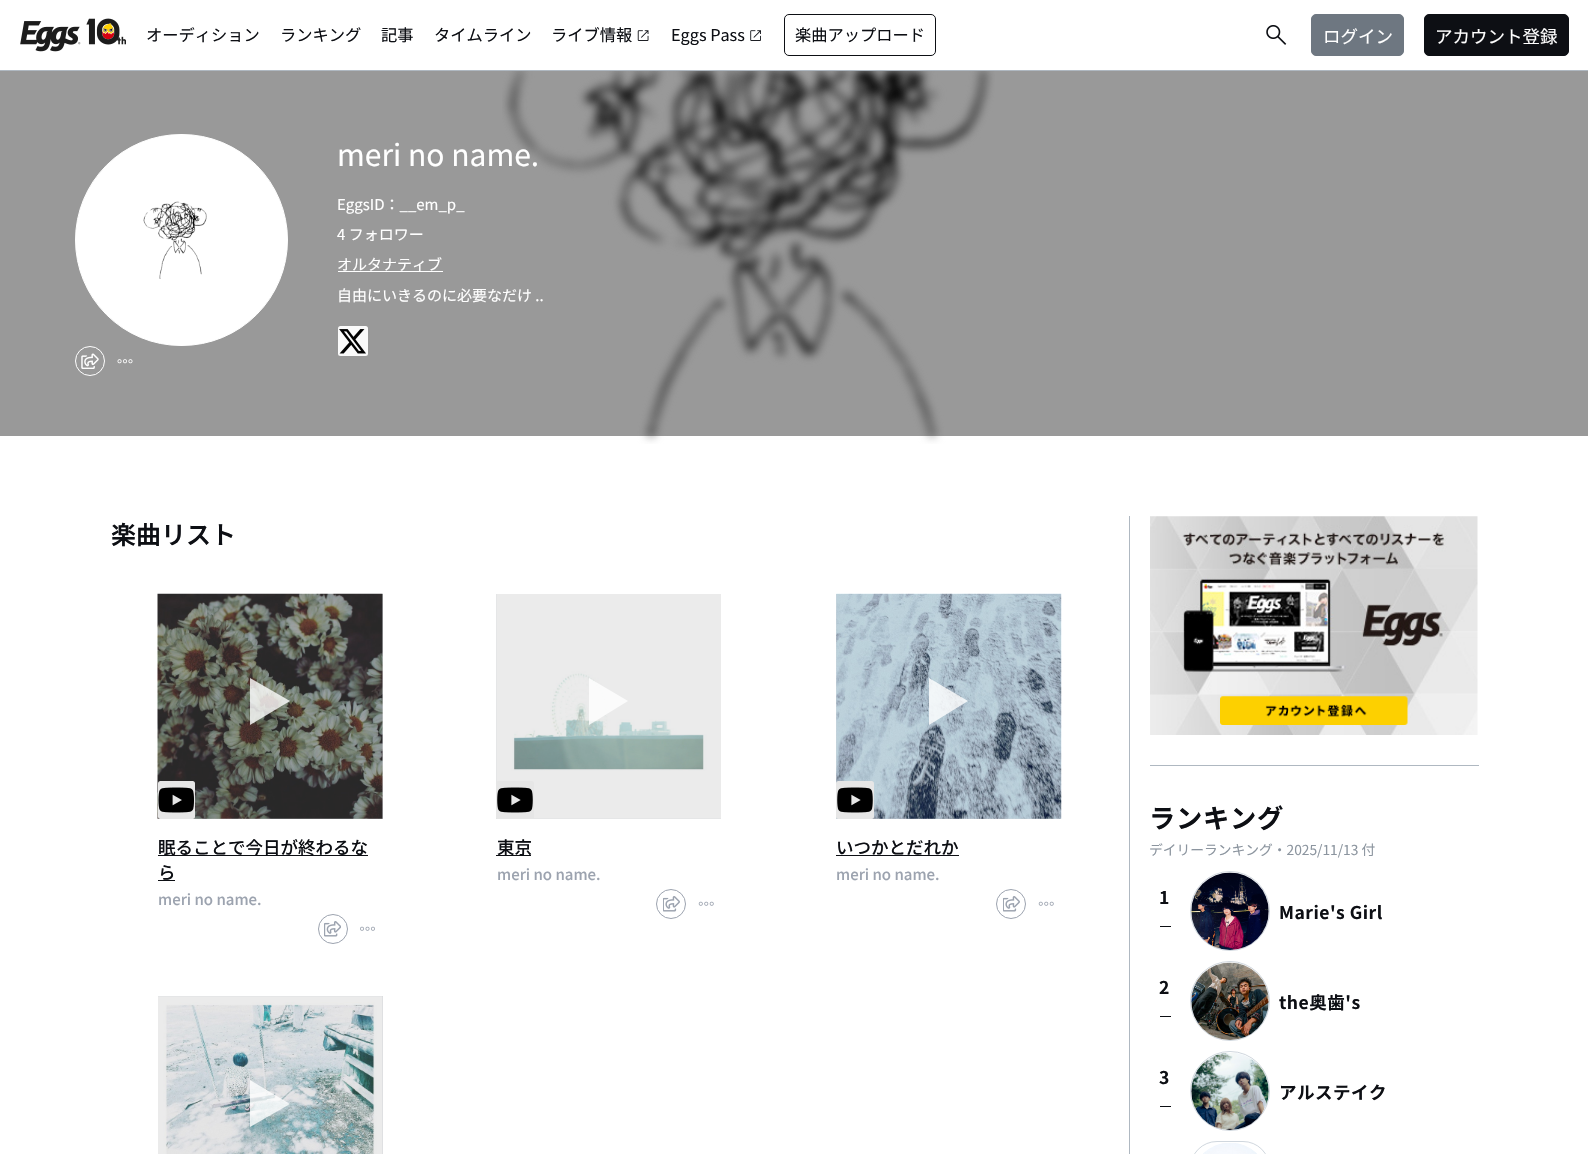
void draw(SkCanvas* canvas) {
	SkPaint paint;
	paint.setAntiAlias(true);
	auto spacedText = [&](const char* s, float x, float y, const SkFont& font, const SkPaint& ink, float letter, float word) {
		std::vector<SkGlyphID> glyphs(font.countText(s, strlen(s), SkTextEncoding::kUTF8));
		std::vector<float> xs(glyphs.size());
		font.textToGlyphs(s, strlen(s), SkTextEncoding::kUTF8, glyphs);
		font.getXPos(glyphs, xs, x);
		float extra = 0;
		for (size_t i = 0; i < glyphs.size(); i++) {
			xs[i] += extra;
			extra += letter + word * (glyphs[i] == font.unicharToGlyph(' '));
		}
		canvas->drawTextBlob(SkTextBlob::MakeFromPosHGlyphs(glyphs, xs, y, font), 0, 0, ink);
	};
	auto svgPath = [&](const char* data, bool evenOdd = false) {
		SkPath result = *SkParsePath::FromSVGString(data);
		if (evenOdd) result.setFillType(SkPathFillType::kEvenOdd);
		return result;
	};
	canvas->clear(0xffffffff);
	paint.setColor(0xffafb8c1);
	canvas->drawRect(SkRect::MakeXYWH(0, 70, 1588, 1), paint);
	canvas->drawImageRect(SkImages::DeferredFromEncodedData(SkData::MakeFromFileName("img1.png")), SkRect::MakeXYWH(20, 18, 106, 34), SkSamplingOptions());
	SkFont f1(fontMgr->matchFamilyStyle("Noto Sans JP", SkFontStyle::Normal()), 16.25);
	f1.setSubpixel(true);
	paint.setColor(0xff0d0f14);
	canvas->drawString("オーディション", 146, 41, f1, paint);
	canvas->drawString("ランキング", 280, 41, f1, paint);
	canvas->drawString("記事", 381, 41, f1, paint);
	canvas->drawString("タイムライン", 434, 41, f1, paint);
	canvas->drawString("ライブ情報", 551, 41, f1, paint);
	canvas->drawImageRect(SkImages::DeferredFromEncodedData(SkData::MakeFromFileName("img2.png")), SkRect::MakeXYWH(637, 30, 12, 11), SkSamplingOptions());
	canvas->drawString("Eggs Pass", 671, 41, f1, paint);
	canvas->drawImageRect(SkImages::DeferredFromEncodedData(SkData::MakeFromFileName("img3.png")), SkRect::MakeXYWH(750, 30, 11, 11), SkSamplingOptions());
	paint.setStroke(true);
	paint.setStrokeWidth(1);
	canvas->drawRoundRect(SkRect::MakeXYWH(784.5, 14.5, 151, 41), 4.5, 4.5, paint);
	paint.setStroke(false);
	canvas->drawString("楽曲アップロード", 795, 41, f1, paint);
	canvas->drawImageRect(SkImages::DeferredFromEncodedData(SkData::MakeFromFileName("img4.png")), SkRect::MakeXYWH(1266, 25, 21, 20), SkSamplingOptions());
	paint.setColor(0xff6e7781);
	canvas->drawRoundRect(SkRect::MakeXYWH(1311.5, 14.5, 92, 41), 4.5, 4.5, paint);
	paint.setStroke(true);
	canvas->drawRoundRect(SkRect::MakeXYWH(1311.5, 14.5, 92, 41), 4.5, 4.5, paint);
	SkFont f2(fontMgr->matchFamilyStyle("Noto Sans JP", SkFontStyle::Normal()), 17.5);
	f2.setSubpixel(true);
	paint.setStroke(false);
	paint.setColor(0xffffffff);
	canvas->drawString("ログイン", 1323, 43, f2, paint);
	paint.setColor(0xff0d0f14);
	canvas->drawRoundRect(SkRect::MakeXYWH(1424.5, 14.5, 144, 41), 4.5, 4.5, paint);
	paint.setStroke(true);
	canvas->drawRoundRect(SkRect::MakeXYWH(1424.5, 14.5, 144, 41), 4.5, 4.5, paint);
	paint.setStroke(false);
	paint.setColor(0xffffffff);
	canvas->drawString("アカウント登録", 1435, 43, f2, paint);
	paint.setColor(0xff999999);
	canvas->drawRect(SkRect::MakeXYWH(0, 71, 1588, 365), paint);
	paint.setColor(0xffffffff);
	canvas->drawRoundRect(SkRect::MakeXYWH(75.5, 134.5, 212, 211), 105.5, 105.5, paint);
	paint.setStroke(true);
	canvas->drawRoundRect(SkRect::MakeXYWH(75.5, 134.5, 212, 211), 105.5, 105.5, paint);
	canvas->drawImageRect(SkImages::DeferredFromEncodedData(SkData::MakeFromFileName("img5.png")), SkRect::MakeXYWH(143, 201, 64, 78), SkSamplingOptions());
	canvas->drawCircle(90, 361, 14.5, paint);
	canvas->drawImageRect(SkImages::DeferredFromEncodedData(SkData::MakeFromFileName("img6.png")), SkRect::MakeXYWH(81, 353, 18, 16), SkSamplingOptions());
	canvas->drawImageRect(SkImages::DeferredFromEncodedData(SkData::MakeFromFileName("img7.png")), SkRect::MakeXYWH(117, 359, 16, 5), SkSamplingOptions());
	canvas->drawImageRect(SkImages::DeferredFromEncodedData(SkData::MakeFromFileName("img9.png")), SkRect::MakeXYWH(502, 71, 493, 373), SkSamplingOptions());
	SkFont f3(fontMgr->matchFamilyStyle("Noto Sans JP", SkFontStyle::Normal()), 30);
	f3.setSubpixel(true);
	paint.setStroke(false);
	canvas->drawString("meri no name.", 337, 166, f3, paint);
	SkFont f4(fontMgr->matchFamilyStyle("Noto Sans JP", SkFontStyle::Normal()), 15);
	f4.setSubpixel(true);
	canvas->drawString("EggsID：__em_p_", 337, 210, f4, paint);
	canvas->drawString("4 フォロワー", 337, 240, f4, paint);
	canvas->drawRect(SkRect::MakeXYWH(338, 271, 105, 1), paint);
	canvas->drawString("オルタナティブ", 337, 270, f4, paint);
	canvas->drawString("自由にいきるのに必要なだけ ..", 337, 301, f4, paint);
	paint.setColor(0xfffafafa);
	canvas->drawRoundRect(SkRect::MakeXYWH(338, 326, 30, 30), 2.5, 2.5, paint);
	canvas->drawImageRect(SkImages::DeferredFromEncodedData(SkData::MakeFromFileName("img8.png")), SkRect::MakeXYWH(339, 329, 27, 25), SkSamplingOptions());
	SkFont f5(fontMgr->matchFamilyStyle("Noto Sans JP", SkFontStyle(600, SkFontStyle::kNormal_Width, SkFontStyle::kUpright_Slant)), 25);
	f5.setSubpixel(true);
	paint.setColor(0xff0d0f14);
	canvas->drawString("楽曲リスト", 111, 544, f5, paint);
	paint.setColor(0xffd3d5d8);
	canvas->drawRect(SkRect::MakeXYWH(158, 594, 225, 225), paint);
	canvas->drawImageRect(SkImages::DeferredFromEncodedData(SkData::MakeFromFileName("img10.png")), SkRect::MakeXYWH(157, 593, 226, 226), SkSamplingOptions());
	paint.setColor(0xccffffff);
	canvas->drawPath(svgPath("M250 725L290 701L250 678Z"), paint);
	paint.setColor(0xffe6e6e6);
	canvas->drawRoundRect(SkRect::MakeXYWH(158, 781, 37, 38), 2.5, 2.5, paint);
	canvas->drawImageRect(SkImages::DeferredFromEncodedData(SkData::MakeFromFileName("img11.png")), SkRect::MakeXYWH(158, 787, 36, 26), SkSamplingOptions());
	paint.setColor(0xff0d0f14);
	canvas->drawRect(SkRect::MakeXYWH(158, 855, 210, 1), paint);
	SkFont f6(fontMgr->matchFamilyStyle("Noto Sans JP", SkFontStyle(500, SkFontStyle::kNormal_Width, SkFontStyle::kUpright_Slant)), 17.5);
	f6.setSubpixel(true);
	canvas->drawString("眠ることで今日が終わるな", 158, 854, f6, paint);
	canvas->drawString("ら", 158, 879, f6, paint);
	canvas->drawRect(SkRect::MakeXYWH(158, 880, 17, 1), paint);
	SkFont f7(fontMgr->matchFamilyStyle("Noto Sans JP", SkFontStyle(500, SkFontStyle::kNormal_Width, SkFontStyle::kUpright_Slant)), 15);
	f7.setSubpixel(true);
	paint.setColor(0xff9ca3af);
	canvas->drawString("meri no name.", 158, 905, f7, paint);
	paint.setStroke(true);
	canvas->drawCircle(333, 929, 14.5, paint);
	canvas->drawImageRect(SkImages::DeferredFromEncodedData(SkData::MakeFromFileName("img12.png")), SkRect::MakeXYWH(324, 921, 17, 16), SkSamplingOptions());
	canvas->drawImageRect(SkImages::DeferredFromEncodedData(SkData::MakeFromFileName("img13.png")), SkRect::MakeXYWH(360, 926, 15, 5), SkSamplingOptions());
	paint.setStroke(false);
	paint.setColor(0xffd3d5d8);
	canvas->drawRect(SkRect::MakeXYWH(496, 594, 225, 225), paint);
	canvas->drawImageRect(SkImages::DeferredFromEncodedData(SkData::MakeFromFileName("img14.png")), SkRect::MakeXYWH(496, 594, 225, 225), SkSamplingOptions());
	paint.setColor(0xccffffff);
	canvas->drawPath(svgPath("M589 725L628 701L589 678Z"), paint);
	paint.setColor(0xffe6e6e6);
	canvas->drawRoundRect(SkRect::MakeXYWH(496, 781, 38, 38), 2.5, 2.5, paint);
	canvas->drawImageRect(SkImages::DeferredFromEncodedData(SkData::MakeFromFileName("img15.png")), SkRect::MakeXYWH(497, 787, 36, 26), SkSamplingOptions());
	paint.setColor(0xff0d0f14);
	canvas->drawRect(SkRect::MakeXYWH(496, 855, 35, 1), paint);
	canvas->drawString("東京", 497, 854, f6, paint);
	paint.setColor(0xff9ca3af);
	canvas->drawString("meri no name.", 497, 880, f7, paint);
	paint.setStroke(true);
	canvas->drawCircle(671, 904, 14.5, paint);
	canvas->drawImageRect(SkImages::DeferredFromEncodedData(SkData::MakeFromFileName("img16.png")), SkRect::MakeXYWH(663, 896, 17, 16), SkSamplingOptions());
	canvas->drawImageRect(SkImages::DeferredFromEncodedData(SkData::MakeFromFileName("img17.png")), SkRect::MakeXYWH(698, 901, 16, 5), SkSamplingOptions());
	paint.setStroke(false);
	paint.setColor(0xffd3d5d8);
	canvas->drawRect(SkRect::MakeXYWH(836, 594, 225, 225), paint);
	canvas->drawImageRect(SkImages::DeferredFromEncodedData(SkData::MakeFromFileName("img18.png")), SkRect::MakeXYWH(836, 593, 226, 226), SkSamplingOptions());
	paint.setColor(0xccffffff);
	canvas->drawPath(svgPath("M929 725L968 701L929 678Z"), paint);
	paint.setColor(0xffe6e6e6);
	canvas->drawRoundRect(SkRect::MakeXYWH(836, 781, 38, 38), 2.5, 2.5, paint);
	canvas->drawImageRect(SkImages::DeferredFromEncodedData(SkData::MakeFromFileName("img15.png")), SkRect::MakeXYWH(837, 787, 36, 26), SkSamplingOptions());
	paint.setColor(0xff0d0f14);
	canvas->drawString("いつかとだれか", 836, 854, f6, paint);
	canvas->drawRect(SkRect::MakeXYWH(836, 855, 123, 1), paint);
	paint.setColor(0xff9ca3af);
	canvas->drawString("meri no name.", 836, 880, f7, paint);
	paint.setStroke(true);
	canvas->drawCircle(1011, 904, 14.5, paint);
	canvas->drawImageRect(SkImages::DeferredFromEncodedData(SkData::MakeFromFileName("img16.png")), SkRect::MakeXYWH(1003, 896, 17, 16), SkSamplingOptions());
	canvas->drawImageRect(SkImages::DeferredFromEncodedData(SkData::MakeFromFileName("img17.png")), SkRect::MakeXYWH(1038, 901, 16, 5), SkSamplingOptions());
	paint.setStroke(false);
	paint.setColor(0xffd3d5d8);
	canvas->drawRect(SkRect::MakeXYWH(158, 996, 225, 158), paint);
	canvas->drawImageRect(SkImages::DeferredFromEncodedData(SkData::MakeFromFileName("img19.png")), SkRect::MakeXYWH(158, 996, 225, 158), SkSamplingOptions());
	paint.setColor(0xccffffff);
	canvas->drawPath(svgPath("M250 1127L290 1104L250 1080Z"), paint);
	paint.setColor(0xffafb8c1);
	canvas->drawRect(SkRect::MakeXYWH(1129, 516, 1, 638), paint);
	canvas->drawRect(SkRect::MakeXYWH(1150, 765, 329, 1), paint);
	canvas->drawImageRect(SkImages::DeferredFromEncodedData(SkData::MakeFromFileName("img20.png")), SkRect::MakeXYWH(1150, 516, 328, 219), SkSamplingOptions());
	canvas->drawImageRect(SkImages::DeferredFromEncodedData(SkData::MakeFromFileName("img21.png")), SkRect::MakeXYWH(1220, 696, 188, 29), SkSamplingOptions());
	SkFont f8(fontMgr->matchFamilyStyle("Noto Sans JP", SkFontStyle::Bold()), 26.25);
	f8.setSubpixel(true);
	paint.setColor(0xff0d0f14);
	spacedText("ランキング", 1149, 828, f8, paint, 0.75, 0);
	SkFont f9(fontMgr->matchFamilyStyle("Noto Sans JP", SkFontStyle::Normal()), 13.75);
	f9.setSubpixel(true);
	paint.setColor(0xff8c959f);
	canvas->drawString("デイリーランキング・2025/11/13 付", 1149, 855, f9, paint);
	SkFont f10(fontMgr->matchFamilyStyle("Noto Sans JP", SkFontStyle::Bold()), 17.5);
	f10.setSubpixel(true);
	paint.setColor(0xff0d0f14);
	spacedText("1", 1159, 904, f10, paint, 0.5, 0);
	canvas->drawRect(SkRect::MakeXYWH(1160, 926, 11, 1), paint);
	paint.setStroke(true);
	paint.setColor(0xffd0d7de);
	canvas->drawCircle(1230, 911, 39.5, paint);
	canvas->drawImageRect(SkImages::DeferredFromEncodedData(SkData::MakeFromFileName("img22.png")), SkRect::MakeXYWH(1191, 872, 78, 78), SkSamplingOptions());
	paint.setStroke(false);
	paint.setColor(0xff0d0f14);
	spacedText("Marie's Girl", 1279, 919, f10, paint, 0.5, 0);
	spacedText("2", 1159, 994, f10, paint, 0.5, 0);
	canvas->drawRect(SkRect::MakeXYWH(1160, 1016, 11, 1), paint);
	paint.setStroke(true);
	paint.setColor(0xffd0d7de);
	canvas->drawCircle(1230, 1001, 39.5, paint);
	canvas->drawImageRect(SkImages::DeferredFromEncodedData(SkData::MakeFromFileName("img23.png")), SkRect::MakeXYWH(1191, 962, 78, 78), SkSamplingOptions());
	paint.setStroke(false);
	paint.setColor(0xff0d0f14);
	spacedText("the奥歯's", 1279, 1009, f10, paint, 0.5, 0);
	spacedText("3", 1159, 1084, f10, paint, 0.5, 0);
	canvas->drawRect(SkRect::MakeXYWH(1160, 1106, 11, 1), paint);
	paint.setStroke(true);
	paint.setColor(0xffd0d7de);
	canvas->drawCircle(1230, 1091, 39.5, paint);
	canvas->drawImageRect(SkImages::DeferredFromEncodedData(SkData::MakeFromFileName("img24.png")), SkRect::MakeXYWH(1191, 1053, 78, 77), SkSamplingOptions());
	paint.setStroke(false);
	paint.setColor(0xff0d0f14);
	spacedText("アルステイク", 1279, 1099, f10, paint, 0.5, 0);
	paint.setStroke(true);
	paint.setColor(0xffd0d7de);
	canvas->drawRoundRect(SkRect::MakeXYWH(1190.5, 1141.5, 79, 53), 39.5, 39.5, paint);
	canvas->drawImageRect(SkImages::DeferredFromEncodedData(SkData::MakeFromFileName("img25.png")), SkRect::MakeXYWH(1203, 1143, 54, 11), SkSamplingOptions());
}
